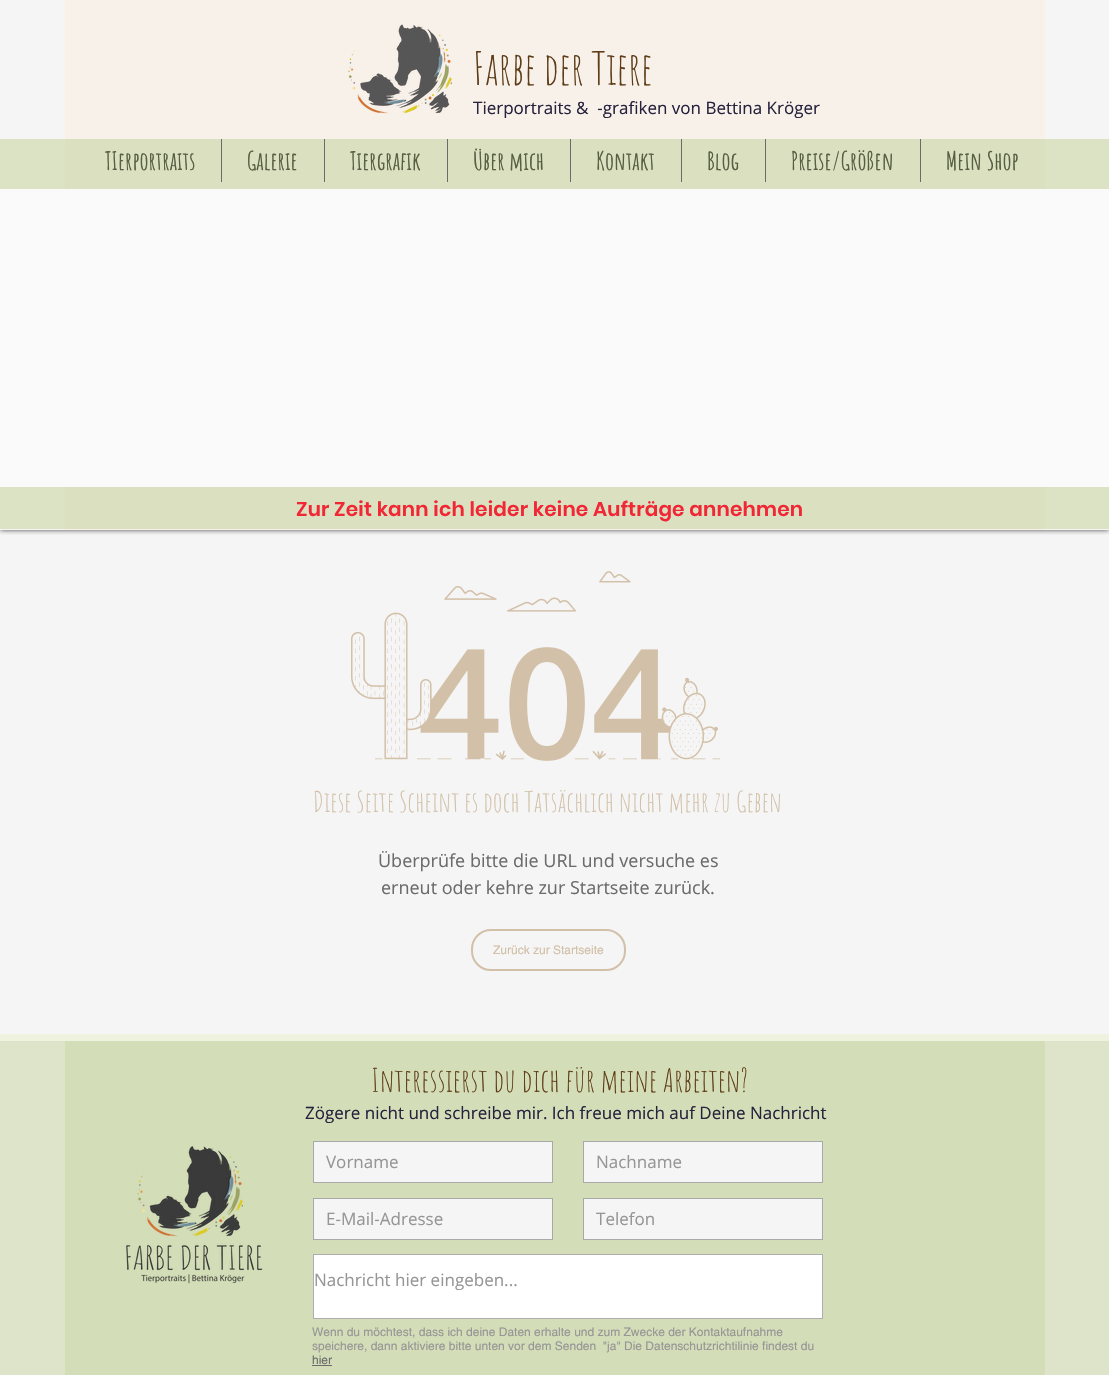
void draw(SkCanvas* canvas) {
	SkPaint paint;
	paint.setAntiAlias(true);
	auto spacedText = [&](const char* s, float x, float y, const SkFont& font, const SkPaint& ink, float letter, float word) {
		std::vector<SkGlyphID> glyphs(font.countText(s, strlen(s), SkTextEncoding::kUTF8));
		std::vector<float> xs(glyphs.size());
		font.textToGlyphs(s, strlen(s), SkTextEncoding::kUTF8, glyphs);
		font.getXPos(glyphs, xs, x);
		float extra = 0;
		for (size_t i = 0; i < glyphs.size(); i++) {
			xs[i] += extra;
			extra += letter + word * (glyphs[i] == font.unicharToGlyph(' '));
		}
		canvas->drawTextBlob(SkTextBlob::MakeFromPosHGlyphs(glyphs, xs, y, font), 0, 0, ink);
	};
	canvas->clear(0xfff5f5f5);
	paint.setColor(0xffdbe3c4);
	canvas->drawRect(SkRect::MakeXYWH(0, 139, 1109, 390), paint);
	canvas->save();
	canvas->clipRect(SkRect::MakeXYWH(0, 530, 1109, 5));
	paint.setColor(0xb3000000);
	paint.setMaskFilter(SkMaskFilter::MakeBlur(kNormal_SkBlurStyle, 2.5));
	canvas->drawRect(SkRect::MakeXYWH(0, 0, 1109, 530), paint);
	paint.setMaskFilter(nullptr);
	canvas->restore();
	paint.setColor(0xfff7f1e9);
	canvas->drawRect(SkRect::MakeXYWH(65, 0, 980, 530), paint);
	paint.setColor(0xffdbe1c0);
	canvas->drawRect(SkRect::MakeXYWH(65, 139, 980, 390), paint);
	canvas->drawImageRect(SkImages::DeferredFromEncodedData(SkData::MakeFromFileName("img1.png")), SkRect::MakeXYWH(348, 24, 104, 90), SkSamplingOptions());
	SkFont f1(fontMgr->matchFamilyStyle("Amatic SC", SkFontStyle::Normal()), 45);
	f1.setSubpixel(true);
	paint.setColor(0xff5e3c17);
	canvas->drawString("Farbe der Tiere", 473, 85, f1, paint);
	SkFont f2(fontMgr->matchFamilyStyle("Open Sans", SkFontStyle::Normal()), 17);
	f2.setSubpixel(true);
	paint.setColor(0xff27223e);
	canvas->drawString("Tierportraits &  -grafiken von Bettina Kröger", 473, 114, f2, paint);
	SkFont f3(fontMgr->matchFamilyStyle("Amatic SC", SkFontStyle::Bold()), 25);
	f3.setSubpixel(true);
	paint.setColor(0xff585e43);
	canvas->drawString("TIerportraits", 105, 170, f3, paint);
	paint.setColor(0xff6b6b6b);
	canvas->drawRect(SkRect::MakeXYWH(221, 139, 1, 43), paint);
	paint.setColor(0xff585e43);
	canvas->drawString("Galerie", 247, 170, f3, paint);
	paint.setColor(0xff6b6b6b);
	canvas->drawRect(SkRect::MakeXYWH(324, 139, 1, 43), paint);
	paint.setColor(0xff585e43);
	canvas->drawString("Tiergrafik", 350, 170, f3, paint);
	paint.setColor(0xff6b6b6b);
	canvas->drawRect(SkRect::MakeXYWH(447, 139, 1, 43), paint);
	paint.setColor(0xff585e43);
	canvas->drawString("Über mich", 473, 170, f3, paint);
	paint.setColor(0xff6b6b6b);
	canvas->drawRect(SkRect::MakeXYWH(570, 139, 1, 43), paint);
	paint.setColor(0xff585e43);
	canvas->drawString("Kontakt", 596, 170, f3, paint);
	paint.setColor(0xff6b6b6b);
	canvas->drawRect(SkRect::MakeXYWH(681, 139, 1, 43), paint);
	paint.setColor(0xff585e43);
	canvas->drawString("Blog", 707, 170, f3, paint);
	paint.setColor(0xff6b6b6b);
	canvas->drawRect(SkRect::MakeXYWH(765, 139, 1, 43), paint);
	paint.setColor(0xff585e43);
	canvas->drawString("Preise/Größen", 791, 170, f3, paint);
	paint.setColor(0xff6b6b6b);
	canvas->drawRect(SkRect::MakeXYWH(920, 139, 1, 43), paint);
	paint.setColor(0xff585e43);
	canvas->drawString("Mein Shop", 946, 170, f3, paint);
	paint.setColor(0xfffafafa);
	canvas->drawRect(SkRect::MakeXYWH(0, 189, 1109, 298), paint);
	SkFont f4(fontMgr->matchFamilyStyle("Poppins", SkFontStyle(600, SkFontStyle::kNormal_Width, SkFontStyle::kUpright_Slant)), 20);
	f4.setSubpixel(true);
	paint.setColor(0xfff22736);
	spacedText("Zur Zeit kann ich leider keine Aufträge annehmen", 296, 516, f4, paint, 0.2, 0);
	canvas->drawImageRect(SkImages::DeferredFromEncodedData(SkData::MakeFromFileName("img2.png")), SkRect::MakeXYWH(351, 571, 369, 190), SkSamplingOptions());
	SkFont f5(fontMgr->matchFamilyStyle("Amatic SC", SkFontStyle::Normal()), 28);
	f5.setSubpixel(true);
	paint.setColor(0xffd2c0a8);
	canvas->drawString("Diese Seite Scheint es doch Tatsächlich nicht mehr zu Geben", 313, 812, f5, paint);
	SkFont f6(fontMgr->matchFamilyStyle("Open Sans", SkFontStyle::Normal()), 18);
	f6.setSubpixel(true);
	paint.setColor(0xff6b6b6b);
	canvas->drawString("Überprüfe bitte die URL und versuche es", 378, 867, f6, paint);
	canvas->drawString("erneut oder kehre zur Startseite zurück.", 381, 894, f6, paint);
	paint.setStroke(true);
	paint.setStrokeWidth(2);
	paint.setColor(0xffd2c0a8);
	canvas->drawRoundRect(SkRect::MakeXYWH(472, 930, 153, 40), 19, 19, paint);
	SkFont f7(fontMgr->matchFamilyStyle("helvetica", SkFontStyle::Normal()), 12);
	f7.setSubpixel(true);
	paint.setStroke(false);
	canvas->drawString("Zurück zur Startseite", 493, 954, f7, paint);
	paint.setColor(0xffdde4c9);
	canvas->drawRect(SkRect::MakeXYWH(0, 1041, 1109, 334), paint);
	paint.setColor(0xffeef2df);
	canvas->drawRect(SkRect::MakeXYWH(0, 1034, 1109, 7), paint);
	paint.setColor(0xffd3ddb7);
	canvas->drawRect(SkRect::MakeXYWH(65, 1041, 980, 334), paint);
	SkFont f8(fontMgr->matchFamilyStyle("Amatic SC", SkFontStyle::Normal()), 32);
	f8.setSubpixel(true);
	paint.setColor(0xff5e3c17);
	canvas->drawString("Interessierst du dich für meine Arbeiten?", 371, 1092, f8, paint);
	paint.setColor(0xff27223e);
	canvas->drawString("Zögere nicht und schreibe mir. Ich freue mich auf Deine Nachricht", 305, 1119, f2, paint);
	canvas->drawImageRect(SkImages::DeferredFromEncodedData(SkData::MakeFromFileName("img3.png")), SkRect::MakeXYWH(126, 1146, 137, 138), SkSamplingOptions());
	paint.setColor(0xfff5f5f5);
	canvas->drawRect(SkRect::MakeXYWH(313.5, 1141.5, 239, 41), paint);
	paint.setStroke(true);
	paint.setStrokeWidth(1);
	paint.setColor(0xffa9a9a9);
	canvas->drawRect(SkRect::MakeXYWH(313.5, 1141.5, 239, 41), paint);
	paint.setStroke(false);
	paint.setColor(0xff969696);
	canvas->drawString("Vorname", 326, 1168, f2, paint);
	paint.setColor(0xfff5f5f5);
	canvas->drawRect(SkRect::MakeXYWH(583.5, 1141.5, 239, 41), paint);
	paint.setStroke(true);
	paint.setColor(0xffa9a9a9);
	canvas->drawRect(SkRect::MakeXYWH(583.5, 1141.5, 239, 41), paint);
	paint.setStroke(false);
	paint.setColor(0xff969696);
	canvas->drawString("Nachname", 596, 1168, f2, paint);
	paint.setColor(0xfff5f5f5);
	canvas->drawRect(SkRect::MakeXYWH(313.5, 1198.5, 239, 41), paint);
	paint.setStroke(true);
	paint.setColor(0xffa9a9a9);
	canvas->drawRect(SkRect::MakeXYWH(313.5, 1198.5, 239, 41), paint);
	paint.setStroke(false);
	paint.setColor(0xff969696);
	canvas->drawString("E-Mail-Adresse", 326, 1225, f2, paint);
	paint.setColor(0xfff5f5f5);
	canvas->drawRect(SkRect::MakeXYWH(583.5, 1198.5, 239, 41), paint);
	paint.setStroke(true);
	paint.setColor(0xffa9a9a9);
	canvas->drawRect(SkRect::MakeXYWH(583.5, 1198.5, 239, 41), paint);
	paint.setStroke(false);
	paint.setColor(0xff969696);
	canvas->drawString("Telefon", 596, 1225, f2, paint);
	paint.setColor(0xffffffff);
	canvas->drawRect(SkRect::MakeXYWH(313.5, 1254.5, 509, 64), paint);
	paint.setStroke(true);
	paint.setColor(0xffaeaeae);
	canvas->drawRect(SkRect::MakeXYWH(313.5, 1254.5, 509, 64), paint);
	paint.setStroke(false);
	paint.setColor(0xff969696);
	canvas->drawString("Nachricht hier eingeben...", 314, 1286, f2, paint);
	canvas->drawString("Wenn du möchtest, dass ich deine Daten erhalte und zum Zwecke der Kontaktaufnahme", 312, 1336, f7, paint);
	canvas->drawString("speichere, dann aktiviere bitte unten vor dem Senden  \"ja\" Die Datenschutzrichtilinie findest du", 312, 1350, f7, paint);
	paint.setColor(0xff6b6b6b);
	canvas->drawString("hier", 312, 1364, f7, paint);
	canvas->drawRect(SkRect::MakeXYWH(312, 1365, 20, 1), paint);
}
